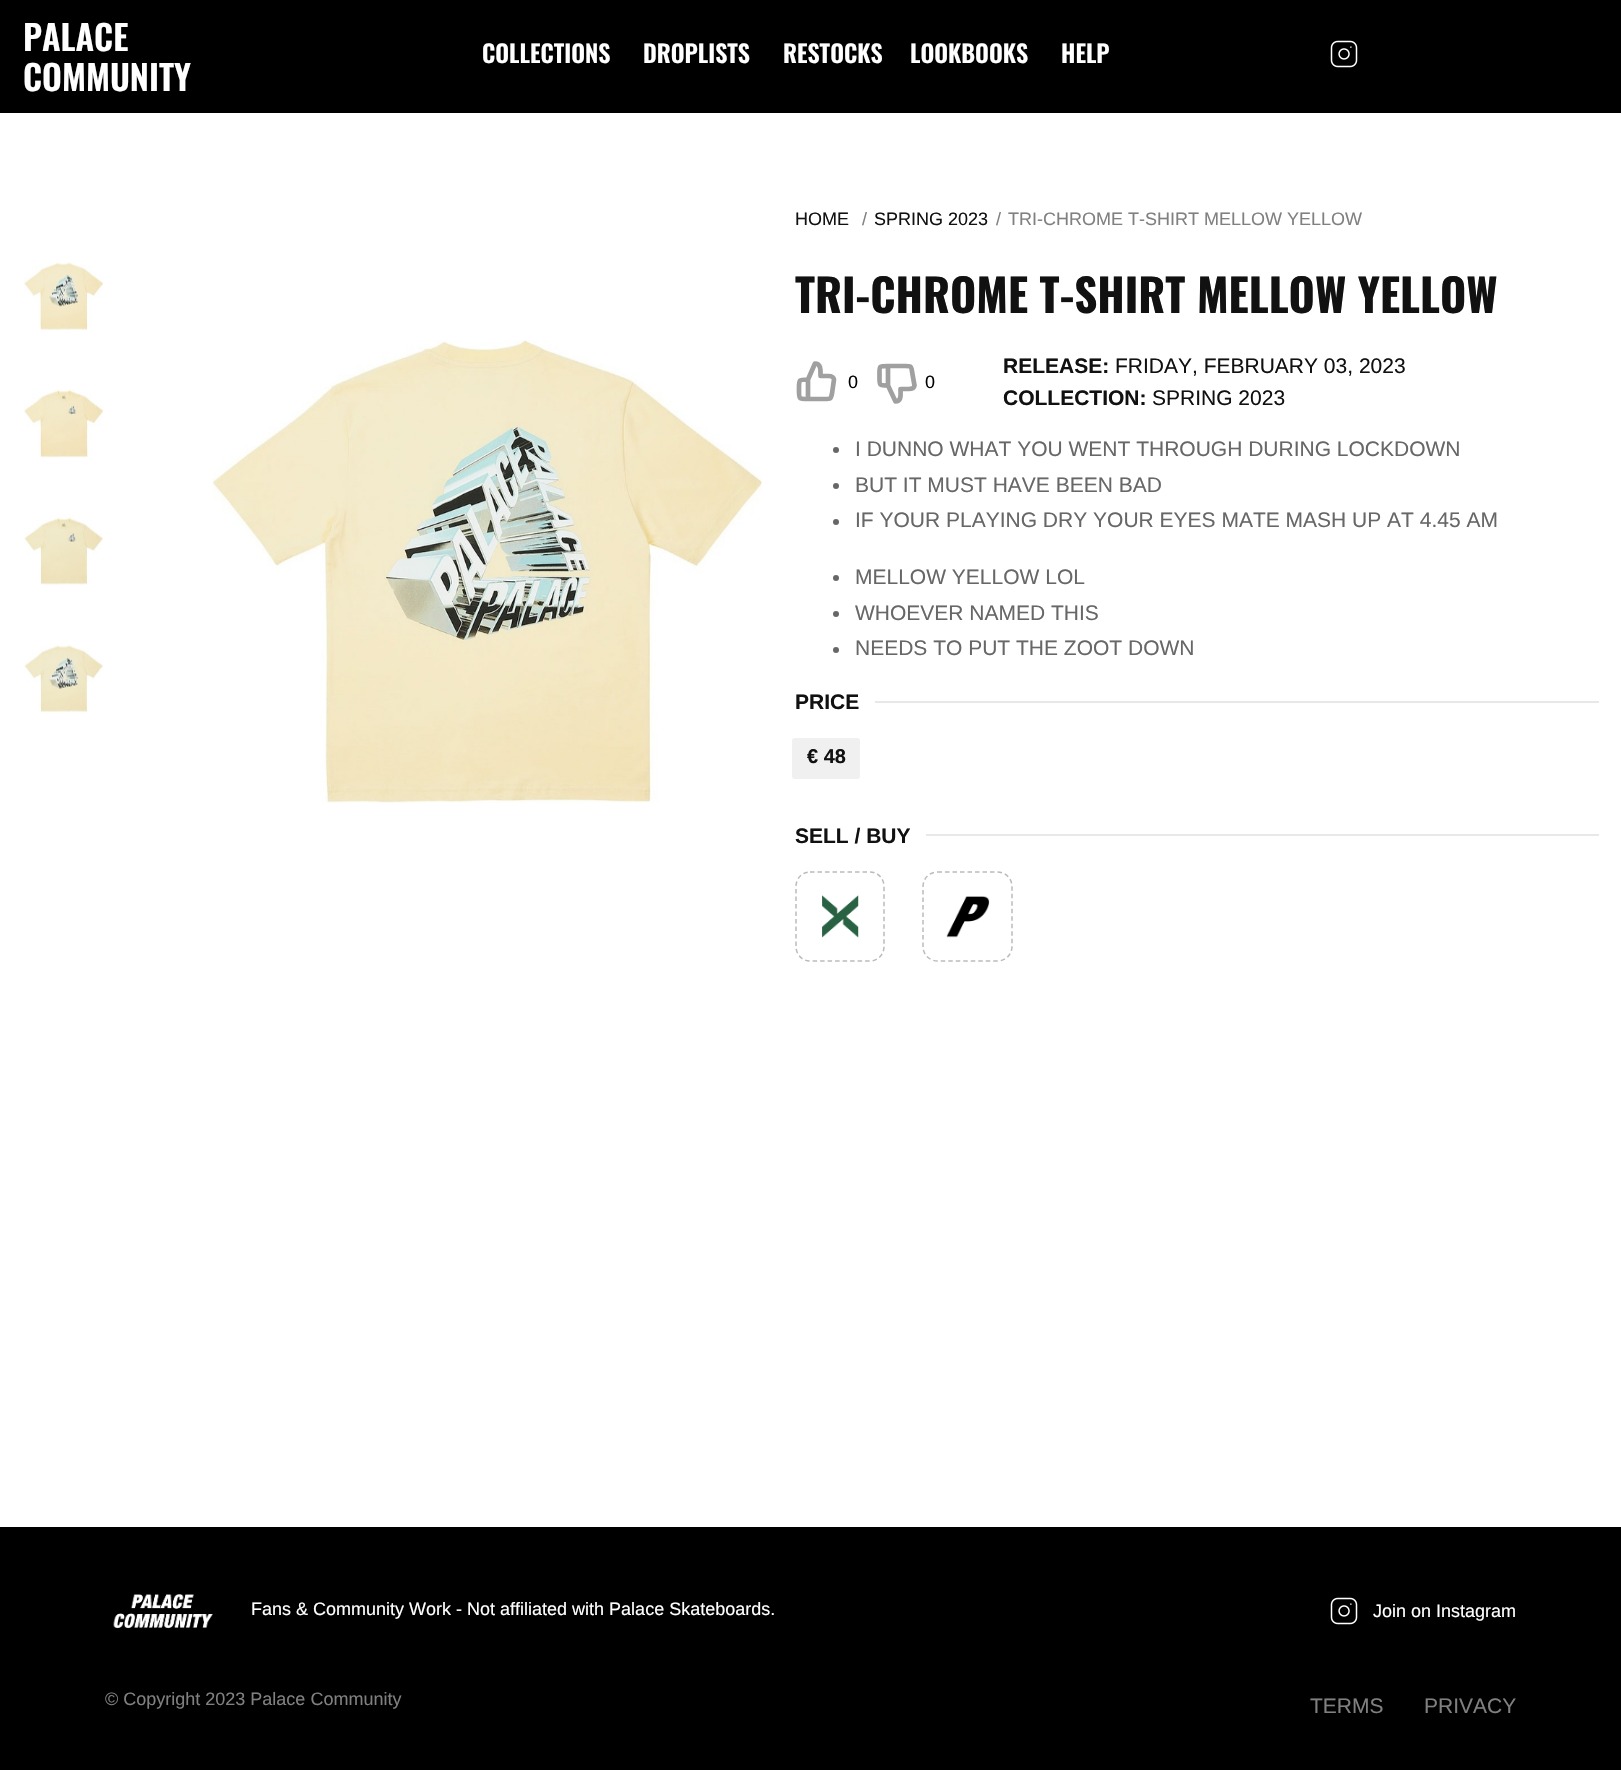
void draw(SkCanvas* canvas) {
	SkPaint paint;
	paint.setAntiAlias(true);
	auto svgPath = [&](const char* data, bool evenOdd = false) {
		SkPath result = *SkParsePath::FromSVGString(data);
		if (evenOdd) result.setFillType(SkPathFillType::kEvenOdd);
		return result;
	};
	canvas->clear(0xffffffff);
	paint.setColor(0xff000000);
	canvas->drawRect(SkRect::MakeXYWH(0, 0, 1621, 113), paint);
	SkFont f1(fontMgr->matchFamilyStyle("Oswald", SkFontStyle(600, SkFontStyle::kNormal_Width, SkFontStyle::kUpright_Slant)), 34.5);
	f1.setSubpixel(true);
	paint.setColor(0xffffffff);
	canvas->drawString("PALACE", 23, 51, f1, paint);
	canvas->drawString("COMMUNITY", 23, 91, f1, paint);
	SkFont f2(fontMgr->matchFamilyStyle("Oswald", SkFontStyle(600, SkFontStyle::kNormal_Width, SkFontStyle::kUpright_Slant)), 24);
	f2.setSubpixel(true);
	canvas->drawString("COLLECTIONS", 482, 63, f2, paint);
	canvas->drawString("DROPLISTS", 643, 63, f2, paint);
	canvas->drawString("RESTOCKS", 783, 63, f2, paint);
	canvas->drawString("LOOKBOOKS", 910, 63, f2, paint);
	canvas->drawString("HELP", 1061, 63, f2, paint);
	canvas->drawImageRect(SkImages::DeferredFromEncodedData(SkData::MakeFromFileName("img1.png")), SkRect::MakeXYWH(1330, 40, 28, 28), SkSamplingOptions());
	canvas->drawImageRect(SkImages::DeferredFromEncodedData(SkData::MakeFromFileName("img2.png")), SkRect::MakeXYWH(24, 262, 80, 68), SkSamplingOptions());
	canvas->drawImageRect(SkImages::DeferredFromEncodedData(SkData::MakeFromFileName("img3.png")), SkRect::MakeXYWH(24, 389, 80, 69), SkSamplingOptions());
	canvas->drawImageRect(SkImages::DeferredFromEncodedData(SkData::MakeFromFileName("img4.png")), SkRect::MakeXYWH(24, 514, 79, 71), SkSamplingOptions());
	canvas->drawImageRect(SkImages::DeferredFromEncodedData(SkData::MakeFromFileName("img5.png")), SkRect::MakeXYWH(24, 644, 80, 69), SkSamplingOptions());
	canvas->drawImageRect(SkImages::DeferredFromEncodedData(SkData::MakeFromFileName("img6.png")), SkRect::MakeXYWH(212, 340, 551, 463), SkSamplingOptions());
	SkFont f3(fontMgr->matchFamilyStyle("Liberation Sans", SkFontStyle::Normal()), 18);
	f3.setSubpixel(true);
	paint.setColor(0xff111111);
	canvas->drawString("HOME", 795, 225, f3, paint);
	paint.setColor(0xff808080);
	canvas->drawString("/", 862, 225, f3, paint);
	paint.setColor(0xff111111);
	canvas->drawString("SPRING 2023", 874, 225, f3, paint);
	paint.setColor(0xff808080);
	canvas->drawString("/", 996, 225, f3, paint);
	canvas->drawString("TRI-CHROME T-SHIRT MELLOW YELLOW", 1008, 225, f3, paint);
	SkFont f4(fontMgr->matchFamilyStyle("Oswald", SkFontStyle::Bold()), 45);
	f4.setSubpixel(true);
	paint.setColor(0xff111111);
	canvas->drawString("TRI-CHROME T-SHIRT MELLOW YELLOW", 795, 313, f4, paint);
	paint.setStroke(true);
	paint.setStrokeWidth(4.7);
	paint.setStrokeCap(SkPaint::kRound_Cap);
	paint.setStrokeJoin(SkPaint::kRound_Join);
	paint.setColor(0xffa0a0a0);
	canvas->drawPath(svgPath("M808 399C798.5 399 799 399 799 389.5C799 379.5 798.5 379.5 808 379.5M820.5 376C820.5 371.5 821.5 363.5 815 363.5L808 379.5V399H824.5C830.5 399 831 399 832 393.5L834 379.5C833.5 375.5 829.5 376 827 376Z"), paint);
	paint.setStroke(false);
	paint.setColor(0xff000000);
	canvas->drawString("0", 848, 388, f3, paint);
	paint.setStroke(true);
	paint.setColor(0xffa0a0a0);
	canvas->drawPath(svgPath("M888 366C878.5 366 879.5 366 879.5 375.5C879.5 385.5 878.5 385.5 888 385.5M900.5 389C900.5 393.5 902 401.5 895.5 401.5L888 385.5V366H905C910.5 366 911.5 366 912 371.5L914.5 385.5C914 389.5 910 389 907.5 389Z"), paint);
	paint.setStroke(false);
	paint.setColor(0xff000000);
	canvas->drawString("0", 925, 388, f3, paint);
	SkFont f5(fontMgr->matchFamilyStyle("Liberation Sans", SkFontStyle::Bold()), 21);
	f5.setSubpixel(true);
	paint.setColor(0xff111111);
	canvas->drawString("RELEASE:", 1003, 373, f5, paint);
	SkFont f6(fontMgr->matchFamilyStyle("Liberation Sans", SkFontStyle::Normal()), 21);
	f6.setSubpixel(true);
	canvas->drawString("FRIDAY, FEBRUARY 03, 2023", 1115, 373, f6, paint);
	canvas->drawString("COLLECTION:", 1003, 405, f5, paint);
	canvas->drawString("SPRING 2023", 1152, 405, f6, paint);
	paint.setColor(0xff676767);
	canvas->drawCircle(836, 450, 3, paint);
	canvas->drawString("I DUNNO WHAT YOU WENT THROUGH DURING LOCKDOWN", 855, 456, f6, paint);
	canvas->drawCircle(836, 486, 3, paint);
	canvas->drawString("BUT IT MUST HAVE BEEN BAD", 855, 492, f6, paint);
	canvas->drawCircle(836, 522, 3, paint);
	canvas->drawString("IF YOUR PLAYING DRY YOUR EYES MATE MASH UP AT 4.45 AM", 855, 527, f6, paint);
	canvas->drawCircle(836, 578, 3, paint);
	canvas->drawString("MELLOW YELLOW LOL", 855, 584, f6, paint);
	canvas->drawCircle(836, 614, 3, paint);
	canvas->drawString("WHOEVER NAMED THIS", 855, 620, f6, paint);
	canvas->drawCircle(836, 650, 3, paint);
	canvas->drawString("NEEDS TO PUT THE ZOOT DOWN", 855, 655, f6, paint);
	paint.setColor(0xff111111);
	canvas->drawString("PRICE", 795, 709, f5, paint);
	paint.setColor(0xffe8e8e8);
	canvas->drawRect(SkRect::MakeXYWH(875, 701, 724, 2), paint);
	paint.setColor(0xfff0f0f0);
	canvas->drawRoundRect(SkRect::MakeXYWH(792, 738, 68, 41), 3, 3, paint);
	SkFont f7(fontMgr->matchFamilyStyle("Liberation Sans", SkFontStyle::Bold()), 20);
	f7.setSubpixel(true);
	paint.setColor(0xff111111);
	canvas->drawString("€ 48", 807, 763, f7, paint);
	canvas->drawString("SELL / BUY", 795, 843, f5, paint);
	paint.setColor(0xffe8e8e8);
	canvas->drawRect(SkRect::MakeXYWH(926, 834, 673, 2), paint);
	paint.setStroke(true);
	paint.setStrokeWidth(1.5);
	paint.setStrokeCap(SkPaint::kButt_Cap);
	paint.setStrokeJoin(SkPaint::kMiter_Join);
	paint.setColor(0xffbbbbbb);
	paint.setPathEffect(SkDashPathEffect::Make({{4.5f, 3}}, 0));
	canvas->drawPath(svgPath("M810 872H870C878 872 884 878.5 884 886.5V946.5C884 954.5 878 961 870 961H810C802 961 796 954.5 796 946.5V886.5C796 878.5 802 872 810 872Z"), paint);
	paint.setPathEffect(nullptr);
	canvas->drawImageRect(SkImages::DeferredFromEncodedData(SkData::MakeFromFileName("img7.png")), SkRect::MakeXYWH(822, 895, 37, 43), SkSamplingOptions());
	paint.setPathEffect(SkDashPathEffect::Make({{4.5f, 3}}, 0));
	canvas->drawPath(svgPath("M937.5 872H997.5C1005.5 872 1012 878.5 1012 886.5V946.5C1012 954.5 1005.5 961 997.5 961H937.5C929.5 961 923 954.5 923 946.5V886.5C923 878.5 929.5 872 937.5 872Z"), paint);
	paint.setPathEffect(nullptr);
	canvas->drawImageRect(SkImages::DeferredFromEncodedData(SkData::MakeFromFileName("img8.png")), SkRect::MakeXYWH(946, 896, 44, 42), SkSamplingOptions());
	paint.setStroke(false);
	paint.setColor(0xff000000);
	canvas->drawRect(SkRect::MakeXYWH(0, 1527, 1621, 243), paint);
	canvas->drawImageRect(SkImages::DeferredFromEncodedData(SkData::MakeFromFileName("img9.png")), SkRect::MakeXYWH(113, 1594, 100, 35), SkSamplingOptions());
	paint.setColor(0xffffffff);
	canvas->drawString("Fans & Community Work - Not affiliated with Palace Skateboards.", 251, 1615, f3, paint);
	paint.setColor(0xff808080);
	canvas->drawString("© Copyright 2023 Palace Community", 105, 1705, f3, paint);
	canvas->drawImageRect(SkImages::DeferredFromEncodedData(SkData::MakeFromFileName("img1.png")), SkRect::MakeXYWH(1330, 1597, 28, 28), SkSamplingOptions());
	paint.setColor(0xffffffff);
	canvas->drawString("Join on Instagram", 1373, 1617, f3, paint);
	paint.setColor(0xff808080);
	canvas->drawString("TERMS", 1310, 1713, f6, paint);
	canvas->drawString("PRIVACY", 1424, 1713, f6, paint);
}
